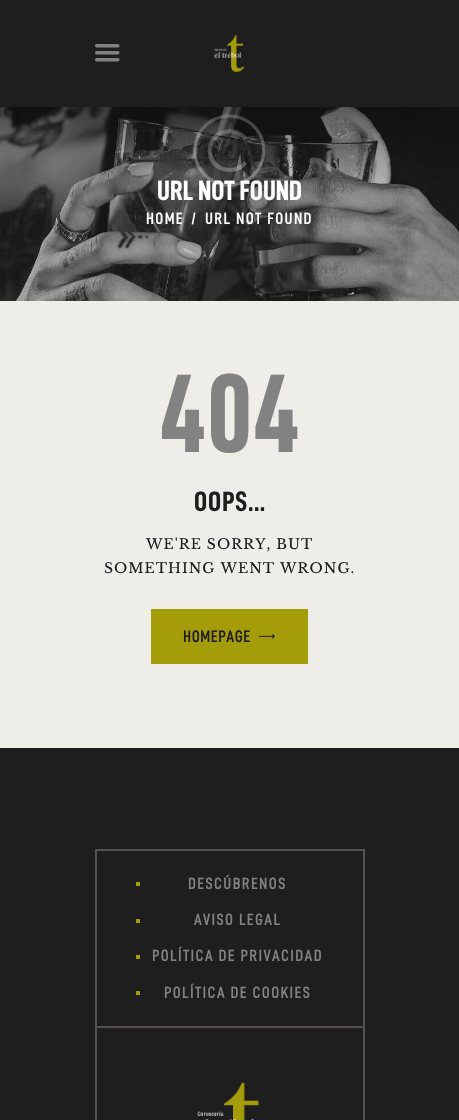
void draw(SkCanvas* canvas) {
	SkPaint paint;
	paint.setAntiAlias(true);
	auto spacedText = [&](const char* s, float x, float y, const SkFont& font, const SkPaint& ink, float letter, float word) {
		std::vector<SkGlyphID> glyphs(font.countText(s, strlen(s), SkTextEncoding::kUTF8));
		std::vector<float> xs(glyphs.size());
		font.textToGlyphs(s, strlen(s), SkTextEncoding::kUTF8, glyphs);
		font.getXPos(glyphs, xs, x);
		float extra = 0;
		for (size_t i = 0; i < glyphs.size(); i++) {
			xs[i] += extra;
			extra += letter + word * (glyphs[i] == font.unicharToGlyph(' '));
		}
		canvas->drawTextBlob(SkTextBlob::MakeFromPosHGlyphs(glyphs, xs, y, font), 0, 0, ink);
	};
	canvas->clear(0xffefede8);
	canvas->drawImageRect(SkImages::DeferredFromEncodedData(SkData::MakeFromFileName("img1.png")), SkRect::MakeXYWH(0, 107, 459, 194), SkSamplingOptions());
	paint.setColor(0xff1e1e1e);
	canvas->drawRect(SkRect::MakeXYWH(0, 0, 459, 107), paint);
	canvas->drawImageRect(SkImages::DeferredFromEncodedData(SkData::MakeFromFileName("img2.png")), SkRect::MakeXYWH(95, 44, 25, 18), SkSamplingOptions());
	canvas->drawImageRect(SkImages::DeferredFromEncodedData(SkData::MakeFromFileName("img3.png")), SkRect::MakeXYWH(214, 34, 31, 39), SkSamplingOptions());
	SkFont f1(fontMgr->matchFamilyStyle("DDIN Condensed", SkFontStyle::Bold()), 28);
	f1.setSubpixel(true);
	paint.setColor(0xffffffff);
	canvas->drawString("URL NOT FOUND", 157, 200, f1, paint);
	SkFont f2(fontMgr->matchFamilyStyle("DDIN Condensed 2", SkFontStyle::Bold()), 15.75);
	f2.setSubpixel(true);
	spacedText("HOME", 146, 224, f2, paint, 1.8, 0);
	spacedText("/", 191, 224, f2, paint, 1.8, 0);
	spacedText("URL NOT FOUND", 205, 224, f2, paint, 1.8, 0);
	SkFont f3(fontMgr->matchFamilyStyle("DDIN Condensed", SkFontStyle::Bold()), 112);
	f3.setSubpixel(true);
	paint.setColor(0xff828282);
	canvas->drawString("404", 159, 452, f3, paint);
	paint.setColor(0xff1e1e1e);
	spacedText("OOPS...", 194, 511, f1, paint, 1, 0);
	SkFont f4(fontMgr->matchFamilyStyle("Libre Baskerville", SkFontStyle::Normal()), 14);
	f4.setSubpixel(true);
	spacedText("WE'RE SORRY, BUT", 146, 549, f4, paint, 1, 0);
	spacedText("SOMETHING WENT WRONG.", 104, 573, f4, paint, 1, 0);
	paint.setColor(0xffa59c09);
	canvas->drawRect(SkRect::MakeXYWH(151, 609, 157, 55), paint);
	SkFont f5(fontMgr->matchFamilyStyle("DDIN Condensed 2", SkFontStyle::Bold()), 16);
	f5.setSubpixel(true);
	paint.setColor(0xff1e1e1e);
	spacedText("HOMEPAGE", 183, 642, f5, paint, 1, 0);
	canvas->drawImageRect(SkImages::DeferredFromEncodedData(SkData::MakeFromFileName("img4.png")), SkRect::MakeXYWH(259, 634, 16, 5), SkSamplingOptions());
	canvas->drawRect(SkRect::MakeXYWH(0, 748, 459, 372), paint);
	paint.setStroke(true);
	paint.setStrokeWidth(2);
	paint.setColor(0xff555151);
	canvas->drawRect(SkRect::MakeXYWH(96, 850, 268, 177), paint);
	paint.setStroke(false);
	paint.setColor(0xffa59c09);
	canvas->drawRect(SkRect::MakeXYWH(136, 882, 4, 4), paint);
	paint.setColor(0xff828282);
	spacedText("DESCÚBRENOS", 188, 889, f2, paint, 1.8, 0);
	paint.setColor(0xffa59c09);
	canvas->drawRect(SkRect::MakeXYWH(136, 919, 4, 4), paint);
	paint.setColor(0xff828282);
	spacedText("AVISO LEGAL", 194, 925, f2, paint, 1.8, 0);
	paint.setColor(0xffa59c09);
	canvas->drawRect(SkRect::MakeXYWH(136, 955, 4, 4), paint);
	paint.setColor(0xff828282);
	spacedText("POLÍTICA DE PRIVACIDAD", 152, 961, f2, paint, 1.8, 0);
	paint.setColor(0xffa59c09);
	canvas->drawRect(SkRect::MakeXYWH(136, 991, 4, 4), paint);
	paint.setColor(0xff828282);
	spacedText("POLÍTICA DE COOKIES", 164, 998, f2, paint, 1.8, 0);
	paint.setColor(0xff555151);
	canvas->drawRect(SkRect::MakeXYWH(363, 1028, 2, 92), paint);
	canvas->drawRect(SkRect::MakeXYWH(95, 1028, 2, 92), paint);
	canvas->drawImageRect(SkImages::DeferredFromEncodedData(SkData::MakeFromFileName("img5.png")), SkRect::MakeXYWH(197, 1082, 62, 38), SkSamplingOptions());
}
